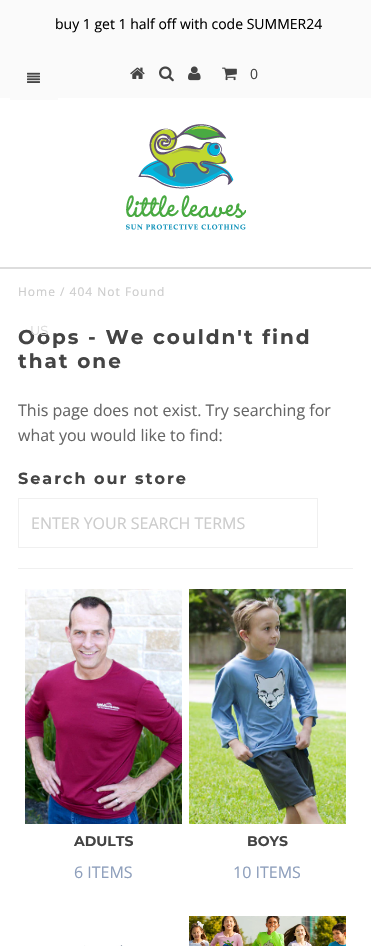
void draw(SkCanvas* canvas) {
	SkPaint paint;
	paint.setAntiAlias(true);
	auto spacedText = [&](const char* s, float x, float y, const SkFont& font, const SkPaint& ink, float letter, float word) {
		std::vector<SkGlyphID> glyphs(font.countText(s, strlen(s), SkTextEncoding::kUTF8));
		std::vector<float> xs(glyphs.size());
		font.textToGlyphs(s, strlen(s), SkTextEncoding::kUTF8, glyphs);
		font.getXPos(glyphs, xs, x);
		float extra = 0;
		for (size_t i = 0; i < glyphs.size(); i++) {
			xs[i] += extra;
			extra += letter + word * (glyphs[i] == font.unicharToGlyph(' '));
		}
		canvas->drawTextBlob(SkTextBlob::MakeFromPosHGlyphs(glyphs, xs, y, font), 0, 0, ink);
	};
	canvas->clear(0xffffffff);
	paint.setColor(0xfffafafa);
	canvas->drawRect(SkRect::MakeXYWH(0, 0, 371, 98), paint);
	SkFont f1(fontMgr->matchFamilyStyle("Open Sans", SkFontStyle::Normal()), 14);
	f1.setSubpixel(true);
	paint.setColor(0xff000000);
	canvas->drawString("buy 1 get 1 half off with code SUMMER24", 55, 29, f1, paint);
	canvas->drawImageRect(SkImages::DeferredFromEncodedData(SkData::MakeFromFileName("img1.png")), SkRect::MakeXYWH(130, 67, 15, 12), SkSamplingOptions());
	canvas->drawImageRect(SkImages::DeferredFromEncodedData(SkData::MakeFromFileName("img2.png")), SkRect::MakeXYWH(159, 66, 15, 16), SkSamplingOptions());
	canvas->drawImageRect(SkImages::DeferredFromEncodedData(SkData::MakeFromFileName("img3.png")), SkRect::MakeXYWH(188, 66, 13, 15), SkSamplingOptions());
	canvas->drawImageRect(SkImages::DeferredFromEncodedData(SkData::MakeFromFileName("img4.png")), SkRect::MakeXYWH(222, 67, 15, 14), SkSamplingOptions());
	paint.setColor(0xff444444);
	canvas->drawString("0", 250, 79, f1, paint);
	canvas->drawImageRect(SkImages::DeferredFromEncodedData(SkData::MakeFromFileName("img5.png")), SkRect::MakeXYWH(126, 124, 120, 106), SkSamplingOptions());
	paint.setColor(0xffdddddd);
	canvas->drawRect(SkRect::MakeXYWH(0, 267, 371, 2), paint);
	SkFont f2(fontMgr->matchFamilyStyle("Open Sans", SkFontStyle::Normal()), 12);
	f2.setSubpixel(true);
	paint.setColor(0xffcccccc);
	spacedText("Home / 404 Not Found", 18, 296, f2, paint, 1, 0);
	SkFont f3(fontMgr->matchFamilyStyle("Montserrat", SkFontStyle::Bold()), 20);
	f3.setSubpixel(true);
	paint.setColor(0xff444444);
	spacedText("Oops - We couldn't find", 18, 344, f3, paint, 2, 0);
	spacedText("that one", 18, 368, f3, paint, 2, 0);
	SkFont f4(fontMgr->matchFamilyStyle("Open Sans", SkFontStyle::Normal()), 16);
	f4.setSubpixel(true);
	paint.setColor(0xff666666);
	canvas->drawString("This page does not exist. Try searching for", 18, 416, f4, paint);
	canvas->drawString("what you would like to find:", 18, 441, f4, paint);
	paint.setColor(0xfff0f0f0);
	canvas->drawRect(SkRect::MakeXYWH(18, 568, 335, 1), paint);
	SkFont f5(fontMgr->matchFamilyStyle("Montserrat", SkFontStyle::Bold()), 16);
	f5.setSubpixel(true);
	paint.setColor(0xff444444);
	spacedText("Search our store", 18, 484, f5, paint, 2, 0);
	paint.setStroke(true);
	paint.setStrokeWidth(1);
	paint.setColor(0xfff0f0f0);
	canvas->drawRect(SkRect::MakeXYWH(18.5, 498.5, 299, 49), paint);
	paint.setStroke(false);
	paint.setColor(0xffcccccc);
	canvas->drawString("ENTER YOUR SEARCH TERMS", 31, 529, f4, paint);
	canvas->drawImageRect(SkImages::DeferredFromEncodedData(SkData::MakeFromFileName("img6.png")), SkRect::MakeXYWH(25, 589, 157, 235), SkSamplingOptions());
	SkFont f6(fontMgr->matchFamilyStyle("Montserrat", SkFontStyle::Bold()), 14);
	f6.setSubpixel(true);
	paint.setColor(0xff444444);
	canvas->drawString("ADULTS", 74, 846, f6, paint);
	paint.setColor(0xff8e9fbc);
	canvas->drawString("6 ITEMS", 74, 878, f4, paint);
	canvas->drawImageRect(SkImages::DeferredFromEncodedData(SkData::MakeFromFileName("img7.png")), SkRect::MakeXYWH(189, 589, 157, 235), SkSamplingOptions());
	paint.setColor(0xff444444);
	canvas->drawString("BOYS", 247, 846, f6, paint);
	paint.setColor(0xff8e9fbc);
	canvas->drawString("10 ITEMS", 233, 878, f4, paint);
	canvas->drawImageRect(SkImages::DeferredFromEncodedData(SkData::MakeFromFileName("img8.png")), SkRect::MakeXYWH(84, 945, 39, 1), SkSamplingOptions());
	canvas->drawImageRect(SkImages::DeferredFromEncodedData(SkData::MakeFromFileName("img9.png")), SkRect::MakeXYWH(189, 916, 157, 30), SkSamplingOptions());
	paint.setColor(0xfffafafa);
	canvas->drawRect(SkRect::MakeXYWH(10, 98, 48, 2), paint);
	canvas->drawImageRect(SkImages::DeferredFromEncodedData(SkData::MakeFromFileName("img10.png")), SkRect::MakeXYWH(27, 72, 13, 11), SkSamplingOptions());
	SkFont f7(fontMgr->matchFamilyStyle("Montserrat", SkFontStyle::Normal()), 13);
	f7.setSubpixel(true);
	paint.setColor(0xffdbdbdb);
	canvas->drawString("US", 30, 335, f7, paint);
}
